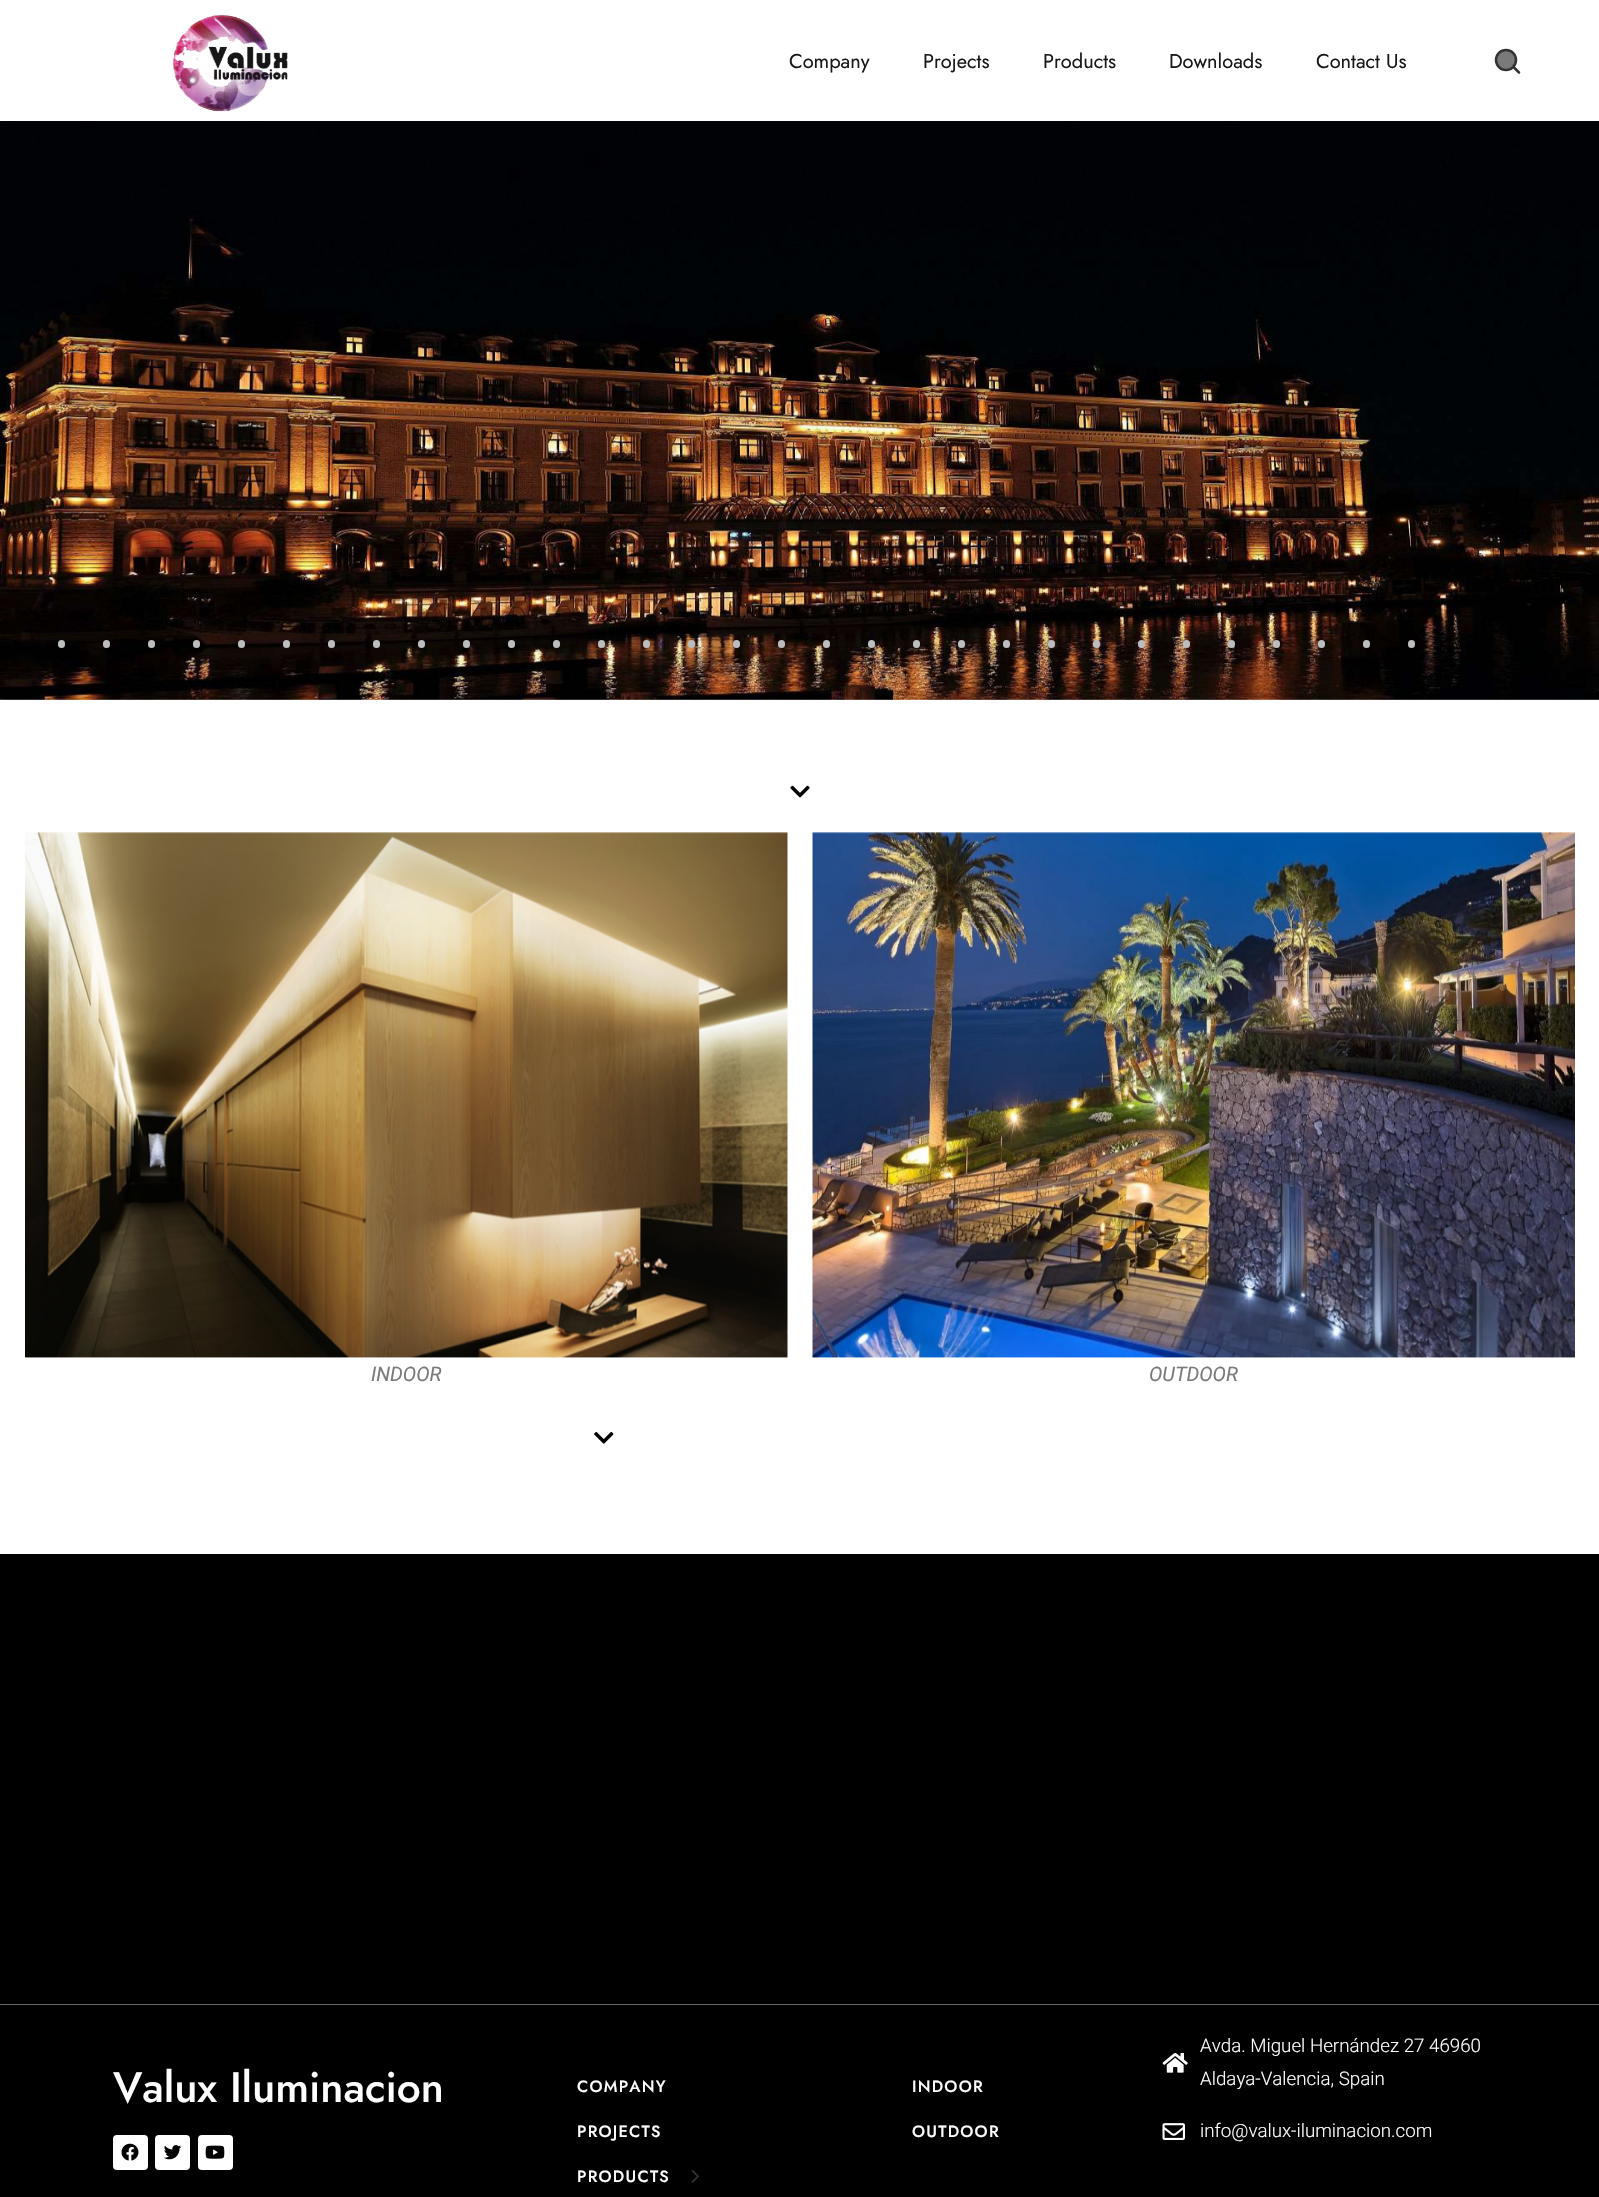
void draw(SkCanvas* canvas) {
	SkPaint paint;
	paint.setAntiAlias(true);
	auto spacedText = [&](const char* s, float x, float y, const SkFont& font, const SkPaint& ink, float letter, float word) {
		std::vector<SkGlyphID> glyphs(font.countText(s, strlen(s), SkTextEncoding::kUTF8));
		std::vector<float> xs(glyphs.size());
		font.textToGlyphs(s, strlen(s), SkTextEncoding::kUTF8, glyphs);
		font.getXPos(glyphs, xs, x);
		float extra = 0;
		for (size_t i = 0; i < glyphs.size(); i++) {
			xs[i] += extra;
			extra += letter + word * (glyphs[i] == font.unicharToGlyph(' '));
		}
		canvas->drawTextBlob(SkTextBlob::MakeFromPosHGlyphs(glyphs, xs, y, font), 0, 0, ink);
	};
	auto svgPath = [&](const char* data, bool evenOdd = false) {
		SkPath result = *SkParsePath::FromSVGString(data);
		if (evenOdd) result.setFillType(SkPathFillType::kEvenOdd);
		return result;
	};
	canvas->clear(0xffffffff);
	canvas->drawImageRect(SkImages::DeferredFromEncodedData(SkData::MakeFromFileName("img1.png")), SkRect::MakeXYWH(173, 15, 115, 97), SkSamplingOptions());
	SkFont f1(fontMgr->matchFamilyStyle("Jost", SkFontStyle::Normal()), 20);
	f1.setSubpixel(true);
	paint.setColor(0xff181818);
	canvas->drawString("Company", 789, 68, f1, paint);
	canvas->drawString("Projects", 923, 68, f1, paint);
	canvas->drawString("Products", 1043, 68, f1, paint);
	canvas->drawString("Downloads", 1169, 68, f1, paint);
	canvas->drawString("Contact Us", 1316, 68, f1, paint);
	paint.setColor(0xff7a7a7a);
	canvas->drawCircle(1506, 60, 10, paint);
	paint.setStroke(true);
	paint.setStrokeWidth(2.5);
	paint.setColor(0xff333333);
	canvas->drawCircle(1506, 60, 10, paint);
	paint.setStrokeCap(SkPaint::kRound_Cap);
	paint.setStrokeJoin(SkPaint::kRound_Join);
	canvas->drawPath(svgPath("M1519 72.5L1513.5 67"), paint);
	canvas->drawImageRect(SkImages::DeferredFromEncodedData(SkData::MakeFromFileName("img2.png")), SkRect::MakeXYWH(0, 121, 1599, 579), SkSamplingOptions());
	paint.setStroke(false);
	paint.setColor(0xff000000);
	canvas->drawRoundRect(SkRect::MakeXYWH(13, 640, 7, 8), 3.5, 3.5, paint);
	paint.setColor(0xffbcbdbe);
	canvas->drawRoundRect(SkRect::MakeXYWH(58, 640, 7, 8), 3.5, 3.5, paint);
	canvas->drawRoundRect(SkRect::MakeXYWH(103, 640, 7, 8), 3.5, 3.5, paint);
	canvas->drawRoundRect(SkRect::MakeXYWH(148, 640, 7, 8), 3.5, 3.5, paint);
	canvas->drawRoundRect(SkRect::MakeXYWH(193, 640, 7, 8), 3.5, 3.5, paint);
	canvas->drawRoundRect(SkRect::MakeXYWH(238, 640, 7, 8), 3.5, 3.5, paint);
	canvas->drawRoundRect(SkRect::MakeXYWH(283, 640, 7, 8), 3.5, 3.5, paint);
	canvas->drawRoundRect(SkRect::MakeXYWH(328, 640, 7, 8), 3.5, 3.5, paint);
	canvas->drawRoundRect(SkRect::MakeXYWH(373, 640, 7, 8), 3.5, 3.5, paint);
	canvas->drawRoundRect(SkRect::MakeXYWH(418, 640, 7, 8), 3.5, 3.5, paint);
	canvas->drawRoundRect(SkRect::MakeXYWH(463, 640, 7, 8), 3.5, 3.5, paint);
	canvas->drawRoundRect(SkRect::MakeXYWH(508, 640, 7, 8), 3.5, 3.5, paint);
	canvas->drawRoundRect(SkRect::MakeXYWH(553, 640, 7, 8), 3.5, 3.5, paint);
	canvas->drawRoundRect(SkRect::MakeXYWH(598, 640, 7, 8), 3.5, 3.5, paint);
	canvas->drawRoundRect(SkRect::MakeXYWH(643, 640, 7, 8), 3.5, 3.5, paint);
	canvas->drawRoundRect(SkRect::MakeXYWH(688, 640, 7, 8), 3.5, 3.5, paint);
	canvas->drawRoundRect(SkRect::MakeXYWH(733, 640, 7, 8), 3.5, 3.5, paint);
	canvas->drawRoundRect(SkRect::MakeXYWH(778, 640, 7, 8), 3.5, 3.5, paint);
	canvas->drawRoundRect(SkRect::MakeXYWH(823, 640, 7, 8), 3.5, 3.5, paint);
	canvas->drawRoundRect(SkRect::MakeXYWH(868, 640, 7, 8), 3.5, 3.5, paint);
	canvas->drawRoundRect(SkRect::MakeXYWH(913, 640, 7, 8), 3.5, 3.5, paint);
	canvas->drawRoundRect(SkRect::MakeXYWH(958, 640, 7, 8), 3.5, 3.5, paint);
	canvas->drawRoundRect(SkRect::MakeXYWH(1003, 640, 7, 8), 3.5, 3.5, paint);
	canvas->drawRoundRect(SkRect::MakeXYWH(1048, 640, 7, 8), 3.5, 3.5, paint);
	canvas->drawRoundRect(SkRect::MakeXYWH(1093, 640, 7, 8), 3.5, 3.5, paint);
	canvas->drawRoundRect(SkRect::MakeXYWH(1138, 640, 7, 8), 3.5, 3.5, paint);
	canvas->drawRoundRect(SkRect::MakeXYWH(1183, 640, 7, 8), 3.5, 3.5, paint);
	canvas->drawRoundRect(SkRect::MakeXYWH(1228, 640, 7, 8), 3.5, 3.5, paint);
	canvas->drawRoundRect(SkRect::MakeXYWH(1273, 640, 7, 8), 3.5, 3.5, paint);
	canvas->drawRoundRect(SkRect::MakeXYWH(1318, 640, 7, 8), 3.5, 3.5, paint);
	canvas->drawRoundRect(SkRect::MakeXYWH(1363, 640, 7, 8), 3.5, 3.5, paint);
	canvas->drawRoundRect(SkRect::MakeXYWH(1408, 640, 7, 8), 3.5, 3.5, paint);
	canvas->drawImageRect(SkImages::DeferredFromEncodedData(SkData::MakeFromFileName("img3.png")), SkRect::MakeXYWH(790, 785, 20, 13), SkSamplingOptions());
	canvas->drawImageRect(SkImages::DeferredFromEncodedData(SkData::MakeFromFileName("img4.png")), SkRect::MakeXYWH(25, 832, 763, 526), SkSamplingOptions());
	SkFont f2(fontMgr->matchFamilyStyle("Roboto", SkFontStyle::Italic()), 20);
	f2.setSubpixel(true);
	paint.setColor(0xff7a7a7a);
	canvas->drawString("INDOOR", 371, 1381, f2, paint);
	canvas->drawImageRect(SkImages::DeferredFromEncodedData(SkData::MakeFromFileName("img5.png")), SkRect::MakeXYWH(812, 832, 763, 526), SkSamplingOptions());
	canvas->drawString("OUTDOOR", 1149, 1381, f2, paint);
	canvas->drawImageRect(SkImages::DeferredFromEncodedData(SkData::MakeFromFileName("img6.png")), SkRect::MakeXYWH(594, 1432, 20, 12), SkSamplingOptions());
	paint.setColor(0xff000000);
	canvas->drawRect(SkRect::MakeXYWH(0, 1554, 1599, 450), paint);
	paint.setColor(0xff686868);
	canvas->drawRect(SkRect::MakeXYWH(0, 2004, 1599, 1), paint);
	paint.setColor(0xff000000);
	canvas->drawRect(SkRect::MakeXYWH(0, 2005, 1599, 192), paint);
	SkFont f3(fontMgr->matchFamilyStyle("Jost", SkFontStyle(500, SkFontStyle::kNormal_Width, SkFontStyle::kUpright_Slant)), 42.5);
	f3.setSubpixel(true);
	paint.setColor(0xffffffff);
	canvas->drawString("Valux Iluminacion", 113, 2102, f3, paint);
	canvas->drawRoundRect(SkRect::MakeXYWH(113, 2135, 35, 35), 4, 4, paint);
	canvas->drawImageRect(SkImages::DeferredFromEncodedData(SkData::MakeFromFileName("img7.png")), SkRect::MakeXYWH(121, 2143, 18, 18), SkSamplingOptions());
	canvas->drawRoundRect(SkRect::MakeXYWH(155, 2135, 35, 35), 4, 4, paint);
	canvas->drawImageRect(SkImages::DeferredFromEncodedData(SkData::MakeFromFileName("img8.png")), SkRect::MakeXYWH(164, 2145, 18, 15), SkSamplingOptions());
	canvas->drawRoundRect(SkRect::MakeXYWH(198, 2135, 35, 35), 4, 4, paint);
	canvas->drawImageRect(SkImages::DeferredFromEncodedData(SkData::MakeFromFileName("img9.png")), SkRect::MakeXYWH(205, 2145, 20, 14), SkSamplingOptions());
	SkFont f4(fontMgr->matchFamilyStyle("Jost", SkFontStyle(500, SkFontStyle::kNormal_Width, SkFontStyle::kUpright_Slant)), 16.25);
	f4.setSubpixel(true);
	spacedText("COMPANY", 577, 2092, f4, paint, 1.25, 0);
	spacedText("PROJECTS", 577, 2137, f4, paint, 1.25, 0);
	spacedText("PRODUCTS", 577, 2182, f4, paint, 1.25, 0);
	canvas->drawImageRect(SkImages::DeferredFromEncodedData(SkData::MakeFromFileName("img10.png")), SkRect::MakeXYWH(691, 2170, 8, 13), SkSamplingOptions());
	spacedText("INDOOR", 912, 2092, f4, paint, 1.25, 0);
	spacedText("OUTDOOR", 912, 2137, f4, paint, 1.25, 0);
	canvas->drawImageRect(SkImages::DeferredFromEncodedData(SkData::MakeFromFileName("img11.png")), SkRect::MakeXYWH(1162, 2053, 26, 20), SkSamplingOptions());
	SkFont f5(fontMgr->matchFamilyStyle("Roboto", SkFontStyle(300, SkFontStyle::kNormal_Width, SkFontStyle::kUpright_Slant)), 18.75);
	f5.setSubpixel(true);
	canvas->drawString("Avda. Miguel Hernández 27 46960", 1200, 2052, f5, paint);
	canvas->drawString("Aldaya-Valencia, Spain", 1200, 2085, f5, paint);
	canvas->drawImageRect(SkImages::DeferredFromEncodedData(SkData::MakeFromFileName("img12.png")), SkRect::MakeXYWH(1162, 2123, 23, 17), SkSamplingOptions());
	canvas->drawString("info@valux-iluminacion.com", 1200, 2137, f5, paint);
}
